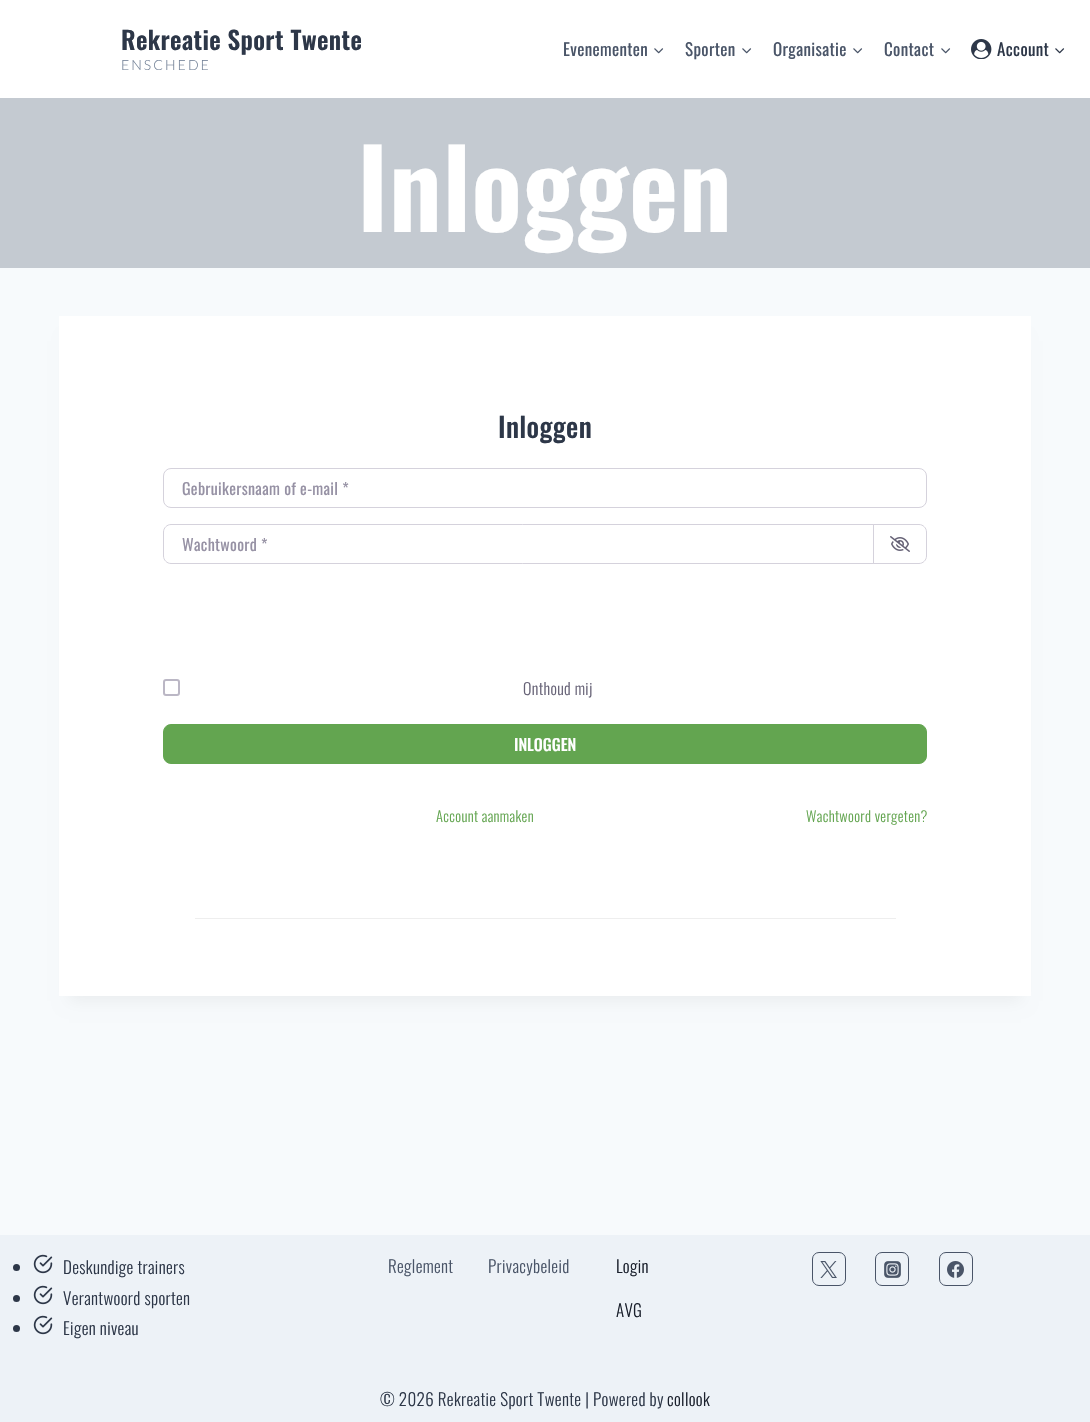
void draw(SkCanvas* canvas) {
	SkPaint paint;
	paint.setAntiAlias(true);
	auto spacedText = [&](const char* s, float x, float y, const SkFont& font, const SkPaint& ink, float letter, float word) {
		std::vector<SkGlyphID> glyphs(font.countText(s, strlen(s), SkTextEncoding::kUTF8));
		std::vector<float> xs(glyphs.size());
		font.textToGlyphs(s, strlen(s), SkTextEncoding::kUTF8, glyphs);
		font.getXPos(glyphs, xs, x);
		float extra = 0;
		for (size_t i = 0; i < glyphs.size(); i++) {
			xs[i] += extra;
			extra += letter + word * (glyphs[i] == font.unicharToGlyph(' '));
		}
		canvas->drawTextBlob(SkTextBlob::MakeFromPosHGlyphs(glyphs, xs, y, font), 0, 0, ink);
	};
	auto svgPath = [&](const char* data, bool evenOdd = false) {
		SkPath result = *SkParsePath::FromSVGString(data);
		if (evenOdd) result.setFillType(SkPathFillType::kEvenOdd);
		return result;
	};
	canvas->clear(0xfff7fafc);
	paint.setColor(0xffffffff);
	canvas->drawRect(SkRect::MakeXYWH(0, 0, 1090, 98), paint);
	SkFont f1(fontMgr->matchFamilyStyle("Oswald", SkFontStyle(600, SkFontStyle::kNormal_Width, SkFontStyle::kUpright_Slant)), 25);
	f1.setSubpixel(true);
	paint.setColor(0xff2d3748);
	spacedText("Rekreatie Sport Twente", 121, 50, f1, paint, 0.35, 0);
	SkFont f2(fontMgr->matchFamilyStyle("Lato", SkFontStyle(300, SkFontStyle::kNormal_Width, SkFontStyle::kUpright_Slant)), 14);
	f2.setSubpixel(true);
	paint.setColor(0xff718096);
	spacedText("ENSCHEDE", 121, 70, f2, paint, 2, 0);
	SkFont f3(fontMgr->matchFamilyStyle("Oswald", SkFontStyle::Normal()), 17);
	f3.setSubpixel(true);
	paint.setColor(0xff4a5568);
	spacedText("Evenementen", 563, 56, f3, paint, 0.35, 0);
	canvas->drawImageRect(SkImages::DeferredFromEncodedData(SkData::MakeFromFileName("img1.png")), SkRect::MakeXYWH(654, 48, 10, 6), SkSamplingOptions());
	spacedText("Sporten", 685, 56, f3, paint, 0.35, 0);
	canvas->drawImageRect(SkImages::DeferredFromEncodedData(SkData::MakeFromFileName("img1.png")), SkRect::MakeXYWH(742, 48, 10, 6), SkSamplingOptions());
	spacedText("Organisatie", 773, 56, f3, paint, 0.35, 0);
	canvas->drawImageRect(SkImages::DeferredFromEncodedData(SkData::MakeFromFileName("img1.png")), SkRect::MakeXYWH(853, 48, 10, 6), SkSamplingOptions());
	spacedText("Contact", 884, 56, f3, paint, 0.35, 0);
	canvas->drawImageRect(SkImages::DeferredFromEncodedData(SkData::MakeFromFileName("img1.png")), SkRect::MakeXYWH(941, 48, 10, 6), SkSamplingOptions());
	canvas->drawImageRect(SkImages::DeferredFromEncodedData(SkData::MakeFromFileName("img2.png")), SkRect::MakeXYWH(971, 39, 21, 20), SkSamplingOptions());
	paint.setColor(0xff2d3748);
	spacedText("Account", 997, 56, f3, paint, 0.35, 0);
	canvas->drawImageRect(SkImages::DeferredFromEncodedData(SkData::MakeFromFileName("img3.png")), SkRect::MakeXYWH(1055, 48, 10, 6), SkSamplingOptions());
	paint.setColor(0xffc4cad1);
	canvas->drawRect(SkRect::MakeXYWH(0, 98, 1090, 170), paint);
	SkFont f4(fontMgr->matchFamilyStyle("Oswald", SkFontStyle(600, SkFontStyle::kNormal_Width, SkFontStyle::kUpright_Slant)), 108);
	f4.setSubpixel(true);
	paint.setColor(0xffffffff);
	spacedText("Inloggen", 357, 232, f4, paint, 0.35, 0);
	paint.setColor(0x0d000000);
	paint.setMaskFilter(SkMaskFilter::MakeBlur(kNormal_SkBlurStyle, 7.5));
	canvas->drawRect(SkRect::MakeXYWH(69, 341, 952, 660), paint);
	paint.setMaskFilter(nullptr);
	paint.setColor(0xffffffff);
	canvas->drawRect(SkRect::MakeXYWH(59, 316, 972, 680), paint);
	SkFont f5(fontMgr->matchFamilyStyle("Oswald", SkFontStyle(500, SkFontStyle::kNormal_Width, SkFontStyle::kUpright_Slant)), 27.5);
	f5.setSubpixel(true);
	paint.setColor(0xff2d3748);
	spacedText("Inloggen", 498, 438, f5, paint, 0.35, 0);
	paint.setStroke(true);
	paint.setStrokeWidth(1);
	paint.setColor(0xffd5d2dc);
	canvas->drawRoundRect(SkRect::MakeXYWH(163.5, 468.5, 763, 39), 7.5, 7.5, paint);
	SkFont f6(fontMgr->matchFamilyStyle("Oswald", SkFontStyle::Normal()), 16);
	f6.setSubpixel(true);
	paint.setStroke(false);
	paint.setColor(0xff9691a4);
	spacedText("Gebruikersnaam of e-mail *", 182, 495, f6, paint, 0.3, 0);
	paint.setStroke(true);
	paint.setColor(0xffd5d2dc);
	canvas->drawPath(svgPath("M873.5 524.5H919C923 524.5 926.5 528 926.5 532V556C926.5 560 923 563.5 919 563.5H873.5Z"), paint);
	canvas->drawPath(svgPath("M171 524.5H873.5V563.5H171C167 563.5 163.5 560 163.5 556V532C163.5 528 167 524.5 171 524.5Z"), paint);
	paint.setStroke(false);
	paint.setColor(0xff9691a4);
	spacedText("Wachtwoord *", 182, 551, f6, paint, 0.3, 0);
	canvas->drawImageRect(SkImages::DeferredFromEncodedData(SkData::MakeFromFileName("img4.png")), SkRect::MakeXYWH(890, 536, 20, 16), SkSamplingOptions());
	paint.setStroke(true);
	paint.setStrokeWidth(2);
	paint.setColor(0xffbbb7c5);
	canvas->drawRoundRect(SkRect::MakeXYWH(164, 680, 15, 15), 2, 2, paint);
	SkFont f7(fontMgr->matchFamilyStyle("Oswald", SkFontStyle(300, SkFontStyle::kNormal_Width, SkFontStyle::kUpright_Slant)), 16);
	f7.setSubpixel(true);
	paint.setStroke(false);
	paint.setColor(0xff666276);
	spacedText("Onthoud mij", 523, 695, f7, paint, 0.35, 0);
	paint.setColor(0xff63a550);
	canvas->drawRoundRect(SkRect::MakeXYWH(163.5, 724.5, 763, 39), 7.5, 7.5, paint);
	paint.setStroke(true);
	paint.setStrokeWidth(1);
	canvas->drawRoundRect(SkRect::MakeXYWH(163.5, 724.5, 763, 39), 7.5, 7.5, paint);
	SkFont f8(fontMgr->matchFamilyStyle("Oswald", SkFontStyle(500, SkFontStyle::kNormal_Width, SkFontStyle::kUpright_Slant)), 16);
	f8.setSubpixel(true);
	paint.setStroke(false);
	paint.setColor(0xffffffff);
	canvas->drawString("INLOGGEN", 514, 751, f8, paint);
	SkFont f9(fontMgr->matchFamilyStyle("Oswald", SkFontStyle(300, SkFontStyle::kNormal_Width, SkFontStyle::kUpright_Slant)), 14.5);
	f9.setSubpixel(true);
	paint.setColor(0xff63a550);
	spacedText("Account aanmaken", 436, 822, f9, paint, 0.35, 0);
	spacedText("Wachtwoord vergeten?", 806, 822, f9, paint, 0.35, 0);
	paint.setColor(0xffeeeeee);
	canvas->drawRect(SkRect::MakeXYWH(195, 918, 701, 1), paint);
	paint.setColor(0xffedf2f7);
	canvas->drawRect(SkRect::MakeXYWH(0, 1235, 1090, 187), paint);
	paint.setColor(0xff2d3748);
	canvas->drawCircle(16.5, 1267.5, 3.5, paint);
	canvas->drawImageRect(SkImages::DeferredFromEncodedData(SkData::MakeFromFileName("img5.png")), SkRect::MakeXYWH(33, 1254, 20, 20), SkSamplingOptions());
	SkFont f10(fontMgr->matchFamilyStyle("Oswald", SkFontStyle(300, SkFontStyle::kNormal_Width, SkFontStyle::kUpright_Slant)), 17);
	f10.setSubpixel(true);
	spacedText("Deskundige trainers", 63, 1274, f10, paint, 0.35, 0);
	canvas->drawCircle(16.5, 1298.5, 3.5, paint);
	canvas->drawImageRect(SkImages::DeferredFromEncodedData(SkData::MakeFromFileName("img5.png")), SkRect::MakeXYWH(33, 1285, 20, 20), SkSamplingOptions());
	spacedText("Verantwoord sporten", 63, 1305, f10, paint, 0.35, 0);
	canvas->drawCircle(16.5, 1328.5, 3.5, paint);
	canvas->drawImageRect(SkImages::DeferredFromEncodedData(SkData::MakeFromFileName("img5.png")), SkRect::MakeXYWH(33, 1315, 20, 20), SkSamplingOptions());
	spacedText("Eigen niveau", 63, 1335, f10, paint, 0.35, 0);
	paint.setColor(0xff4a5568);
	spacedText("Reglement", 388, 1273, f10, paint, 0.35, 0);
	spacedText("Privacybeleid", 488, 1273, f10, paint, 0.35, 0);
	paint.setColor(0xff1a202c);
	spacedText("Login", 616, 1273, f10, paint, 0.35, 0);
	spacedText("AVG", 616, 1317, f10, paint, 0.35, 0);
	paint.setStroke(true);
	paint.setColor(0xff4a5568);
	canvas->drawRoundRect(SkRect::MakeXYWH(812.5, 1252.5, 33, 33), 6.5, 6.5, paint);
	canvas->drawImageRect(SkImages::DeferredFromEncodedData(SkData::MakeFromFileName("img6.png")), SkRect::MakeXYWH(820, 1261, 17, 17), SkSamplingOptions());
	canvas->drawRoundRect(SkRect::MakeXYWH(875.5, 1252.5, 33, 33), 6.5, 6.5, paint);
	canvas->drawImageRect(SkImages::DeferredFromEncodedData(SkData::MakeFromFileName("img7.png")), SkRect::MakeXYWH(884, 1261, 17, 17), SkSamplingOptions());
	canvas->drawRoundRect(SkRect::MakeXYWH(939.5, 1252.5, 33, 33), 6.5, 6.5, paint);
	canvas->drawImageRect(SkImages::DeferredFromEncodedData(SkData::MakeFromFileName("img8.png")), SkRect::MakeXYWH(947, 1261, 17, 17), SkSamplingOptions());
	paint.setStroke(false);
	paint.setColor(0xff2d3748);
	spacedText("© 2026 Rekreatie Sport Twente | Powered by", 380, 1406, f10, paint, 0.35, 0);
	paint.setColor(0xff1a202c);
	spacedText("collook", 667, 1406, f10, paint, 0.35, 0);
}
